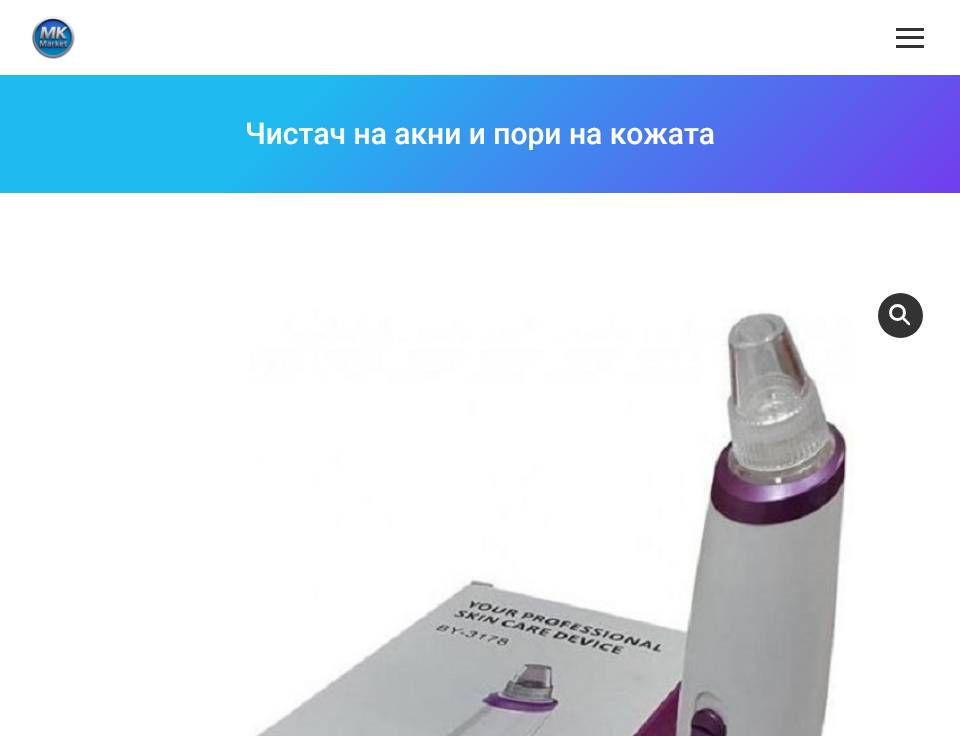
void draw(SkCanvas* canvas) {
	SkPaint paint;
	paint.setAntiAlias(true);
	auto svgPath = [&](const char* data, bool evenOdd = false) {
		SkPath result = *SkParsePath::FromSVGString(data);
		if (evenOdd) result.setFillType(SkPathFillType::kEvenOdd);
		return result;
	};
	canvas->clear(0xffffffff);
	canvas->drawImageRect(SkImages::DeferredFromEncodedData(SkData::MakeFromFileName("img1.png")), SkRect::MakeXYWH(31, 16, 44, 43), SkSamplingOptions());
	paint.setColor(0xff333333);
	canvas->drawRect(SkRect::MakeXYWH(896, 28, 28, 3), paint);
	canvas->drawRect(SkRect::MakeXYWH(896, 36, 28, 3), paint);
	canvas->drawRect(SkRect::MakeXYWH(896, 45, 28, 3), paint);
	{
		const SkColor colors[] = {0xff1ebbf0, 0xff723ded};
		const float stops[] = {0.3, 1};
		const SkPoint ends[] = {{211, -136}, {749, 403}};
		paint.setShader(SkGradientShader::MakeLinear(ends, colors, stops, 2, SkTileMode::kClamp));
		paint.setAlpha(255);
	}
	canvas->drawRect(SkRect::MakeXYWH(0, 75, 960, 118), paint);
	SkFont f1(fontMgr->matchFamilyStyle("Roboto", SkFontStyle(500, SkFontStyle::kNormal_Width, SkFontStyle::kUpright_Slant)), 30);
	f1.setSubpixel(true);
	paint.setShader(nullptr);
	paint.setColor(0xffffffff);
	canvas->drawString("Чистач на акни и пори на кожата", 245, 144, f1, paint);
	canvas->drawImageRect(SkImages::DeferredFromEncodedData(SkData::MakeFromFileName("img2.png")), SkRect::MakeXYWH(250, 309, 605, 427), SkSamplingOptions());
	paint.setColor(0xff333333);
	canvas->drawCircle(900.5, 315.5, 22.5, paint);
	paint.setStroke(true);
	paint.setStrokeWidth(3);
	paint.setColor(0xffffffff);
	canvas->drawCircle(897.5, 312.5, 7, paint);
	paint.setStroke(false);
	canvas->drawPath(svgPath("M902.5 317.5C904 316.5 906.5 319.5 907 320.5C908 321 911 323.5 910 325C908.5 326 906 323 905.5 322C904.5 321.5 901.5 319 902.5 317.5Z"), paint);
}
